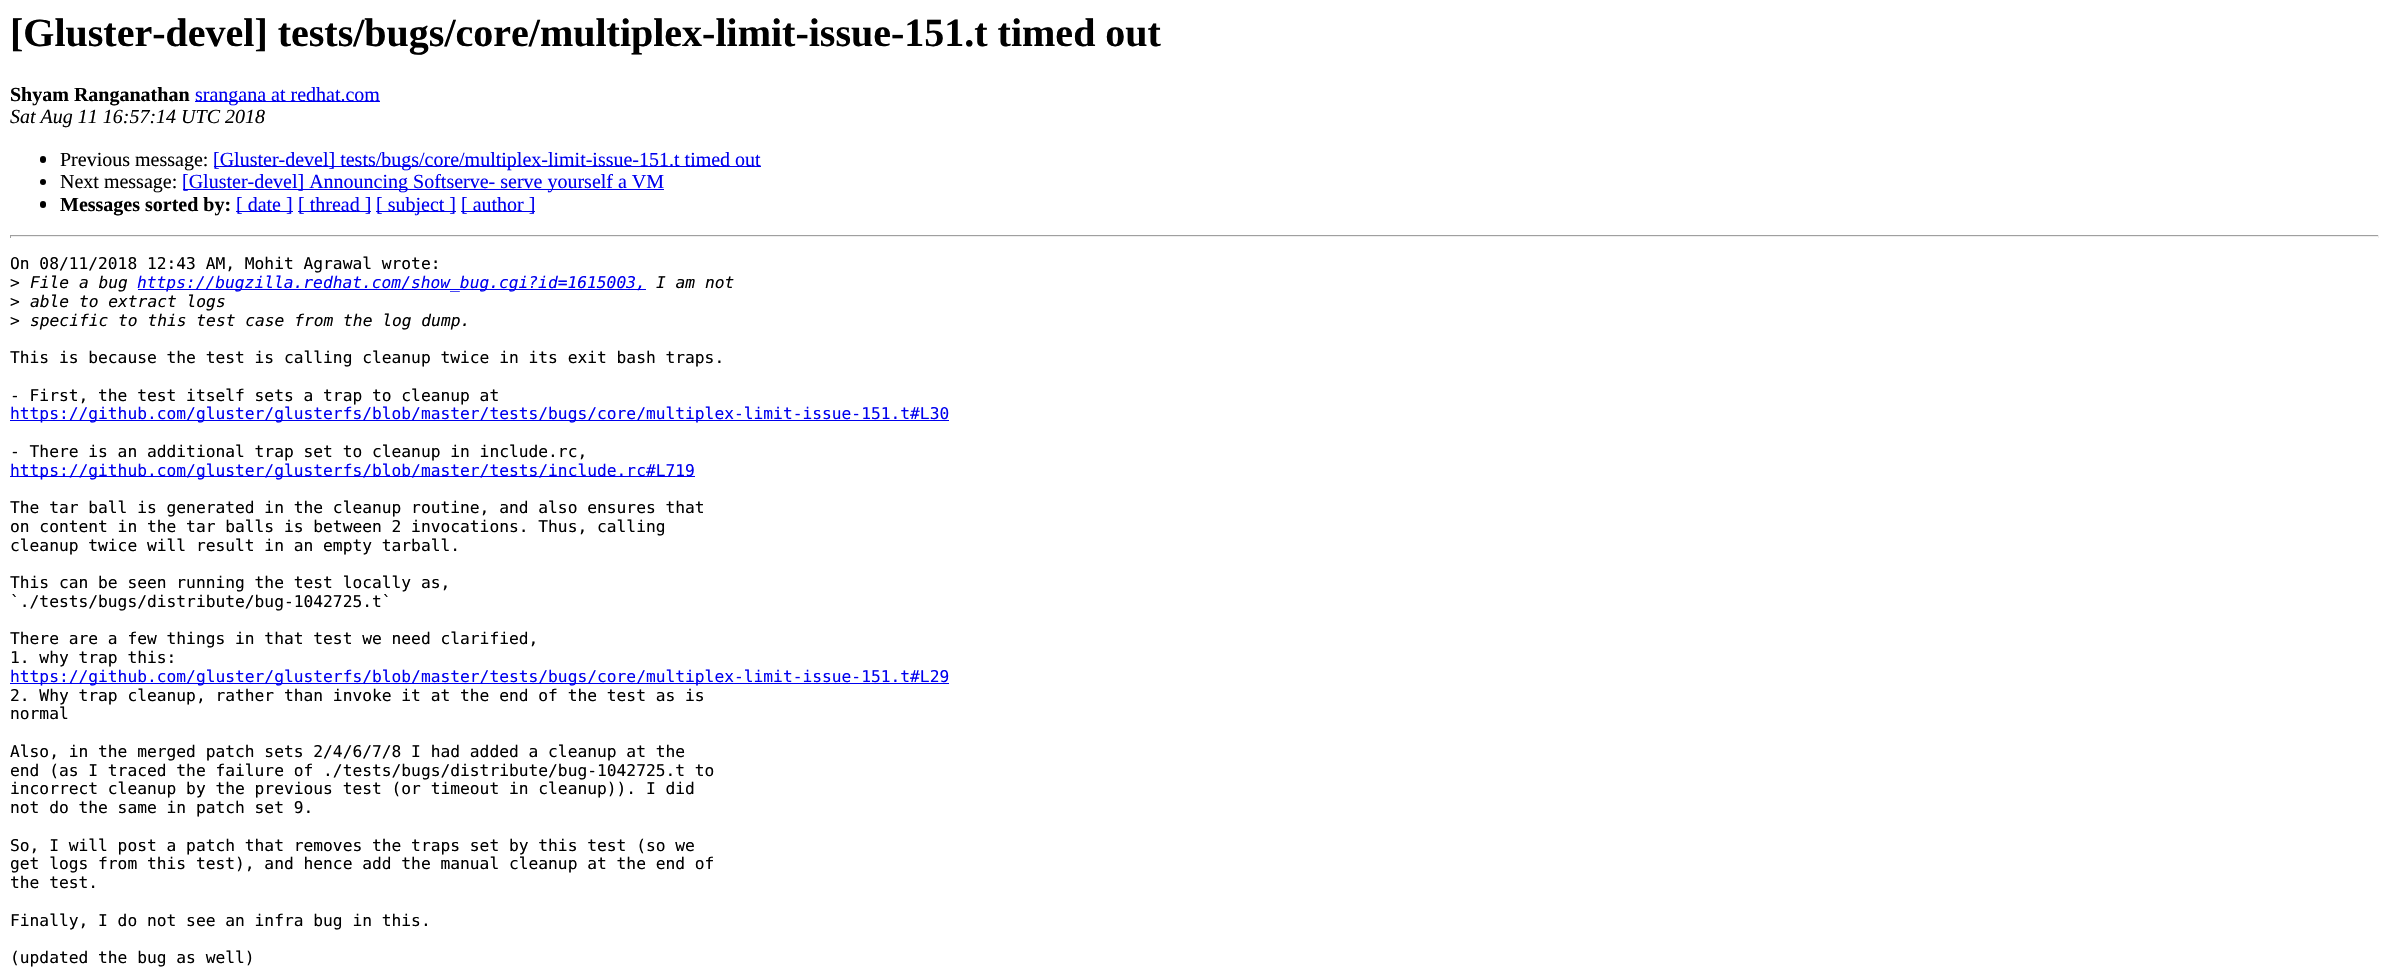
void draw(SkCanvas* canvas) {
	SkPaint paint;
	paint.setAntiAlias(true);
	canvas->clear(0xffffffff);
	SkFont f1(fontMgr->matchFamilyStyle("Liberation Serif", SkFontStyle::Bold()), 40);
	f1.setSubpixel(true);
	paint.setColor(0xff000000);
	canvas->drawString("[Gluster-devel] tests/bugs/core/multiplex-limit-issue-151.t timed out", 10, 46, f1, paint);
	SkFont f2(fontMgr->matchFamilyStyle("Liberation Serif", SkFontStyle::Bold()), 20);
	f2.setSubpixel(true);
	canvas->drawString("Shyam Ranganathan", 10, 101, f2, paint);
	paint.setColor(0xff0000ee);
	canvas->drawRect(SkRect::MakeXYWH(195, 101, 185, 1), paint);
	SkFont f3(fontMgr->matchFamilyStyle("Liberation Serif", SkFontStyle::Normal()), 20);
	f3.setSubpixel(true);
	canvas->drawString("srangana at redhat.com", 195, 101, f3, paint);
	SkFont f4(fontMgr->matchFamilyStyle("Liberation Serif", SkFontStyle::Italic()), 20);
	f4.setSubpixel(true);
	paint.setColor(0xff000000);
	canvas->drawString("Sat Aug 11 16:57:14 UTC 2018", 10, 123, f4, paint);
	canvas->drawRoundRect(SkRect::MakeXYWH(40, 156, 6, 7), 3, 3, paint);
	canvas->drawString("Previous message:", 60, 166, f3, paint);
	paint.setColor(0xff0000ee);
	canvas->drawRect(SkRect::MakeXYWH(214, 166, 547, 1), paint);
	canvas->drawString("[Gluster-devel] tests/bugs/core/multiplex-limit-issue-151.t timed out", 213, 166, f3, paint);
	paint.setColor(0xff000000);
	canvas->drawCircle(43, 182, 3, paint);
	canvas->drawString("Next message:", 60, 188, f3, paint);
	paint.setColor(0xff0000ee);
	canvas->drawRect(SkRect::MakeXYWH(183, 189, 481, 1), paint);
	canvas->drawString("[Gluster-devel] Announcing Softserve- serve yourself a VM", 182, 188, f3, paint);
	paint.setColor(0xff000000);
	canvas->drawRoundRect(SkRect::MakeXYWH(40, 201, 6, 7), 3, 3, paint);
	canvas->drawString("Messages sorted by:", 60, 211, f2, paint);
	paint.setColor(0xff0000ee);
	canvas->drawRect(SkRect::MakeXYWH(236, 211, 57, 1), paint);
	canvas->drawString("[ date ]", 236, 211, f3, paint);
	canvas->drawRect(SkRect::MakeXYWH(298, 211, 73, 1), paint);
	canvas->drawString("[ thread ]", 298, 211, f3, paint);
	canvas->drawRect(SkRect::MakeXYWH(376, 211, 80, 1), paint);
	canvas->drawString("[ subject ]", 376, 211, f3, paint);
	canvas->drawRect(SkRect::MakeXYWH(461, 211, 74, 1), paint);
	canvas->drawString("[ author ]", 461, 211, f3, paint);
	paint.setColor(0xff9f9f9f);
	canvas->drawRect(SkRect::MakeXYWH(10, 235, 2369, 1), paint);
	paint.setColor(0xffeeeeee);
	canvas->drawRect(SkRect::MakeXYWH(2378, 235, 1, 3), paint);
	canvas->drawRect(SkRect::MakeXYWH(10, 236, 2369, 1), paint);
	paint.setColor(0xff9f9f9f);
	canvas->drawRect(SkRect::MakeXYWH(10, 235, 1, 3), paint);
	SkFont f5(fontMgr->matchFamilyStyle("DejaVu Sans Mono", SkFontStyle::Normal()), 16.25);
	f5.setSubpixel(true);
	paint.setColor(0xff000000);
	canvas->drawString("On 08/11/2018 12:43 AM, Mohit Agrawal wrote:", 10, 269, f5, paint);
	canvas->drawString(">", 10, 288, f5, paint);
	SkFont f6(fontMgr->matchFamilyStyle("DejaVu Sans Mono", SkFontStyle::Italic()), 16.25);
	f6.setSubpixel(true);
	canvas->drawString("File a bug", 30, 288, f6, paint);
	paint.setColor(0xff0000ee);
	canvas->drawRect(SkRect::MakeXYWH(138, 289, 508, 1), paint);
	canvas->drawString("https://bugzilla.redhat.com/show_bug.cgi?id=1615003,", 137, 288, f6, paint);
	paint.setColor(0xff000000);
	canvas->drawString("I am not", 656, 288, f6, paint);
	canvas->drawString(">", 10, 307, f5, paint);
	canvas->drawString("able to extract logs", 30, 307, f6, paint);
	canvas->drawString(">", 10, 326, f5, paint);
	canvas->drawString("specific to this test case from the log dump.", 30, 326, f6, paint);
	canvas->drawString("This is because the test is calling cleanup twice in its exit bash traps.", 10, 363, f5, paint);
	canvas->drawString("- First, the test itself sets a trap to cleanup at", 10, 401, f5, paint);
	paint.setColor(0xff0000ee);
	canvas->drawRect(SkRect::MakeXYWH(10, 420, 939, 1), paint);
	canvas->drawString("https://github.com/gluster/glusterfs/blob/master/tests/bugs/core/multiplex-limit-issue-151.t#L30", 10, 419, f5, paint);
	paint.setColor(0xff000000);
	canvas->drawString("- There is an additional trap set to cleanup in include.rc,", 10, 457, f5, paint);
	paint.setColor(0xff0000ee);
	canvas->drawRect(SkRect::MakeXYWH(10, 476, 685, 1), paint);
	canvas->drawString("https://github.com/gluster/glusterfs/blob/master/tests/include.rc#L719", 10, 476, f5, paint);
	paint.setColor(0xff000000);
	canvas->drawString("The tar ball is generated in the cleanup routine, and also ensures that", 10, 513, f5, paint);
	canvas->drawString("on content in the tar balls is between 2 invocations. Thus, calling", 10, 532, f5, paint);
	canvas->drawString("cleanup twice will result in an empty tarball.", 10, 551, f5, paint);
	canvas->drawString("This can be seen running the test locally as,", 10, 588, f5, paint);
	canvas->drawString("`./tests/bugs/distribute/bug-1042725.t`", 10, 607, f5, paint);
	canvas->drawString("There are a few things in that test we need clarified,", 10, 644, f5, paint);
	canvas->drawString("1. why trap this:", 10, 663, f5, paint);
	paint.setColor(0xff0000ee);
	canvas->drawRect(SkRect::MakeXYWH(10, 683, 939, 1), paint);
	canvas->drawString("https://github.com/gluster/glusterfs/blob/master/tests/bugs/core/multiplex-limit-issue-151.t#L29", 10, 682, f5, paint);
	paint.setColor(0xff000000);
	canvas->drawString("2. Why trap cleanup, rather than invoke it at the end of the test as is", 10, 701, f5, paint);
	canvas->drawString("normal", 10, 719, f5, paint);
	canvas->drawString("Also, in the merged patch sets 2/4/6/7/8 I had added a cleanup at the", 10, 757, f5, paint);
	canvas->drawString("end (as I traced the failure of ./tests/bugs/distribute/bug-1042725.t to", 10, 776, f5, paint);
	canvas->drawString("incorrect cleanup by the previous test (or timeout in cleanup)). I did", 10, 794, f5, paint);
	canvas->drawString("not do the same in patch set 9.", 10, 813, f5, paint);
	canvas->drawString("So, I will post a patch that removes the traps set by this test (so we", 10, 851, f5, paint);
	canvas->drawString("get logs from this test), and hence add the manual cleanup at the end of", 10, 869, f5, paint);
	canvas->drawString("the test.", 10, 888, f5, paint);
	canvas->drawString("Finally, I do not see an infra bug in this.", 10, 926, f5, paint);
	canvas->drawString("(updated the bug as well)", 10, 963, f5, paint);
}
